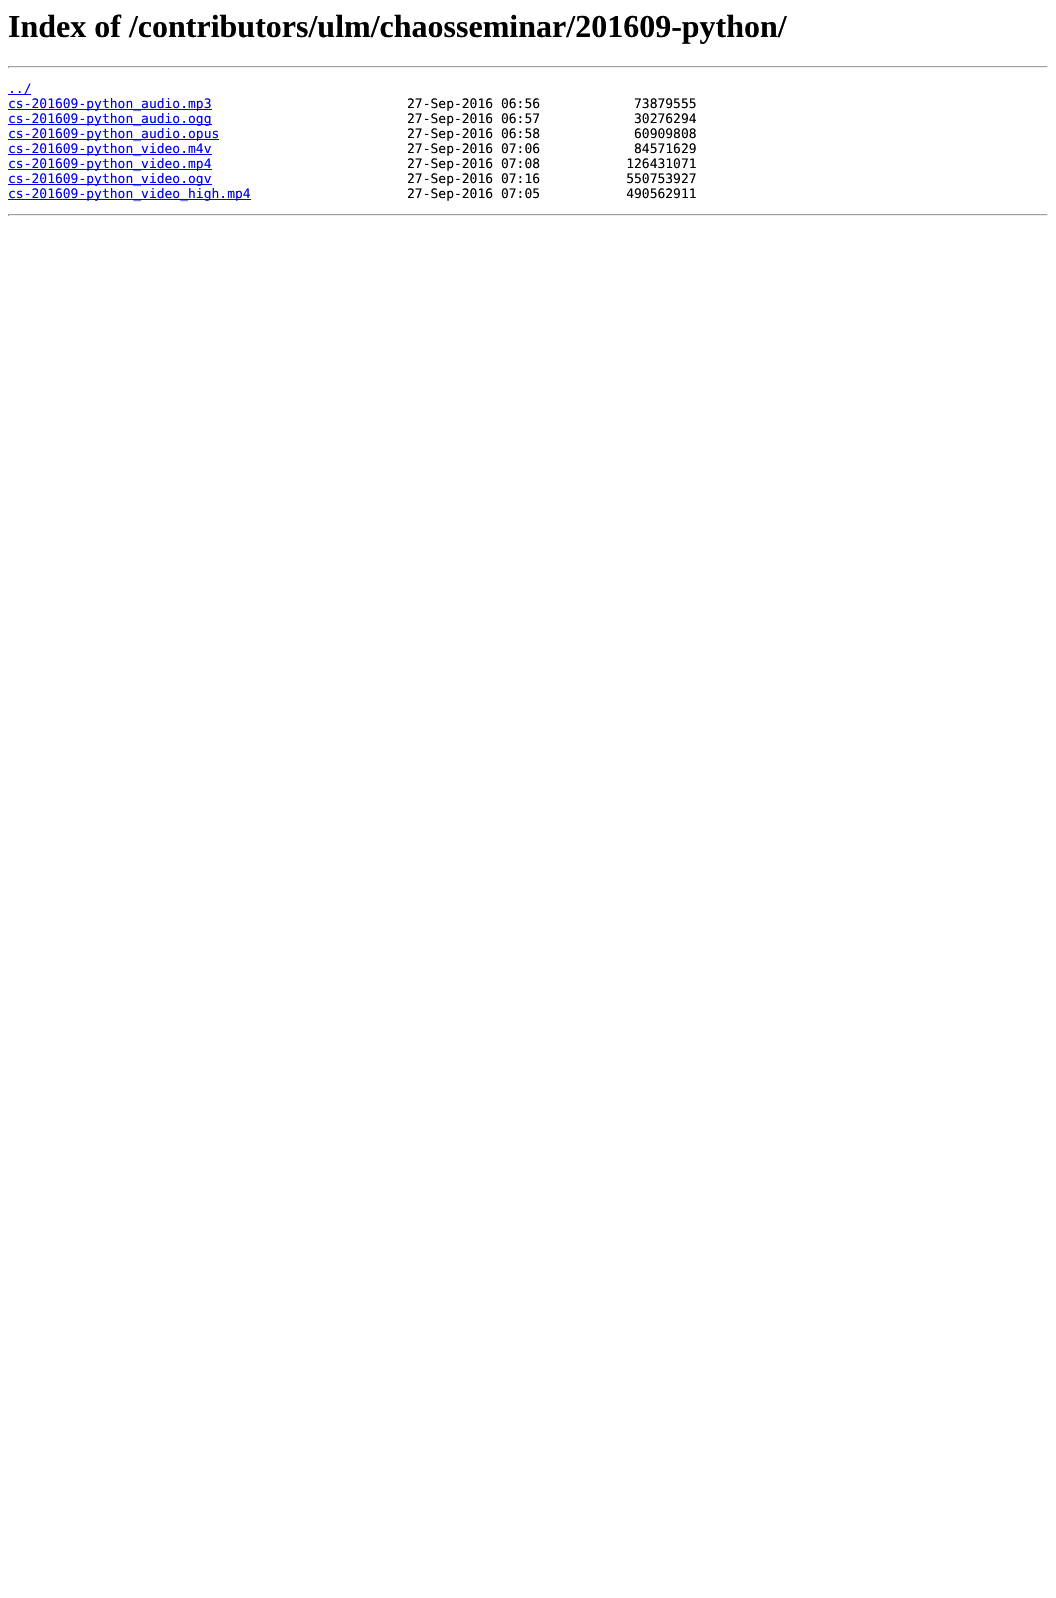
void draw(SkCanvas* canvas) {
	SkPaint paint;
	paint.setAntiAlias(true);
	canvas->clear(0xffffffff);
	SkFont f1(fontMgr->matchFamilyStyle("Liberation Serif", SkFontStyle::Bold()), 32);
	f1.setSubpixel(true);
	paint.setColor(0xff000000);
	canvas->drawString("Index of /contributors/ulm/chaosseminar/201609-python/", 8, 37, f1, paint);
	paint.setColor(0xff9f9f9f);
	canvas->drawRect(SkRect::MakeXYWH(8, 66, 1040, 1), paint);
	paint.setColor(0xffeeeeee);
	canvas->drawRect(SkRect::MakeXYWH(1047, 66, 1, 2), paint);
	canvas->drawRect(SkRect::MakeXYWH(8, 67, 1040, 1), paint);
	paint.setColor(0xff9f9f9f);
	canvas->drawRect(SkRect::MakeXYWH(8, 66, 1, 2), paint);
	paint.setColor(0xff0000ee);
	canvas->drawRect(SkRect::MakeXYWH(8, 94, 23, 1), paint);
	SkFont f2(fontMgr->matchFamilyStyle("DejaVu Sans Mono", SkFontStyle::Normal()), 13);
	f2.setSubpixel(true);
	canvas->drawString("../", 8, 93, f2, paint);
	canvas->drawRect(SkRect::MakeXYWH(8, 109, 204, 1), paint);
	canvas->drawString("cs-201609-python_audio.mp3", 8, 108, f2, paint);
	paint.setColor(0xff000000);
	canvas->drawString("27-Sep-2016 06:56            73879555", 407, 108, f2, paint);
	paint.setColor(0xff0000ee);
	canvas->drawRect(SkRect::MakeXYWH(8, 124, 204, 1), paint);
	canvas->drawString("cs-201609-python_audio.ogg", 8, 123, f2, paint);
	paint.setColor(0xff000000);
	canvas->drawString("27-Sep-2016 06:57            30276294", 407, 123, f2, paint);
	paint.setColor(0xff0000ee);
	canvas->drawRect(SkRect::MakeXYWH(8, 139, 211, 1), paint);
	canvas->drawString("cs-201609-python_audio.opus", 8, 138, f2, paint);
	paint.setColor(0xff000000);
	canvas->drawString("27-Sep-2016 06:58            60909808", 407, 138, f2, paint);
	paint.setColor(0xff0000ee);
	canvas->drawRect(SkRect::MakeXYWH(8, 154, 204, 1), paint);
	canvas->drawString("cs-201609-python_video.m4v", 8, 153, f2, paint);
	paint.setColor(0xff000000);
	canvas->drawString("27-Sep-2016 07:06            84571629", 407, 153, f2, paint);
	paint.setColor(0xff0000ee);
	canvas->drawRect(SkRect::MakeXYWH(8, 169, 204, 1), paint);
	canvas->drawString("cs-201609-python_video.mp4", 8, 168, f2, paint);
	paint.setColor(0xff000000);
	canvas->drawString("27-Sep-2016 07:08           126431071", 407, 168, f2, paint);
	paint.setColor(0xff0000ee);
	canvas->drawRect(SkRect::MakeXYWH(8, 184, 204, 1), paint);
	canvas->drawString("cs-201609-python_video.ogv", 8, 183, f2, paint);
	paint.setColor(0xff000000);
	canvas->drawString("27-Sep-2016 07:16           550753927", 407, 183, f2, paint);
	paint.setColor(0xff0000ee);
	canvas->drawRect(SkRect::MakeXYWH(8, 199, 243, 1), paint);
	canvas->drawString("cs-201609-python_video_high.mp4", 8, 198, f2, paint);
	paint.setColor(0xff000000);
	canvas->drawString("27-Sep-2016 07:05           490562911", 407, 198, f2, paint);
	paint.setColor(0xff9f9f9f);
	canvas->drawRect(SkRect::MakeXYWH(8, 214, 1040, 1), paint);
	paint.setColor(0xffeeeeee);
	canvas->drawRect(SkRect::MakeXYWH(1047, 214, 1, 2), paint);
	canvas->drawRect(SkRect::MakeXYWH(8, 215, 1040, 1), paint);
	paint.setColor(0xff9f9f9f);
	canvas->drawRect(SkRect::MakeXYWH(8, 214, 1, 2), paint);
}
